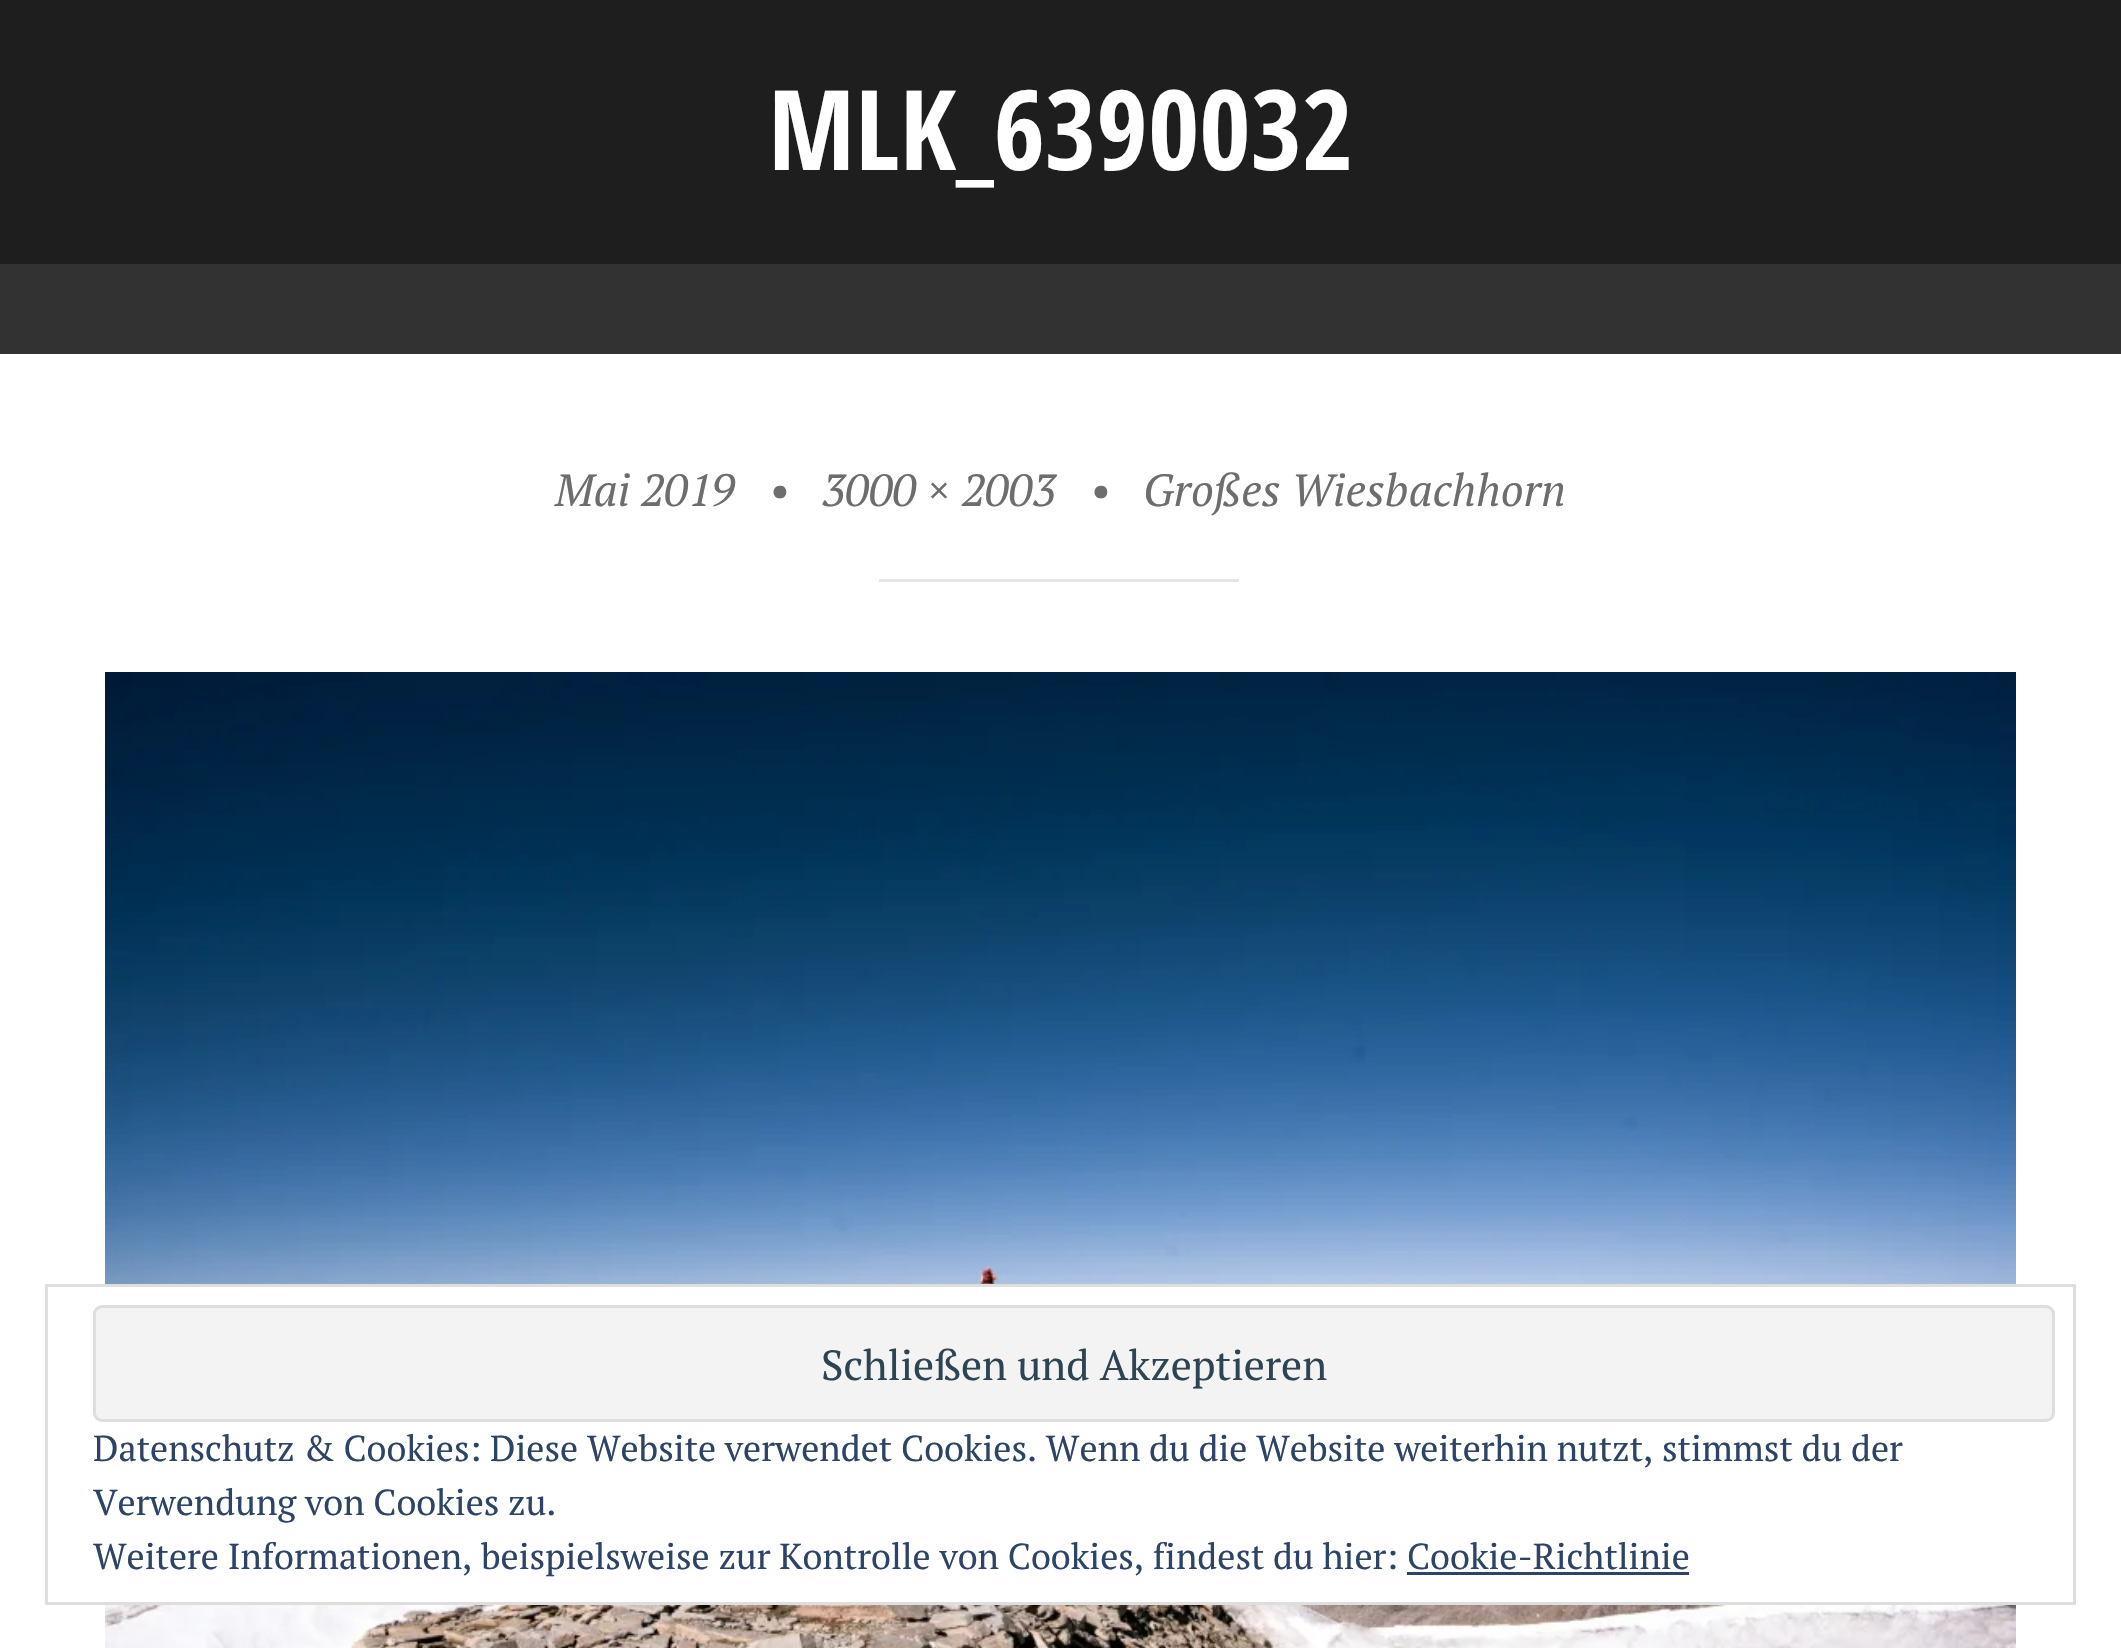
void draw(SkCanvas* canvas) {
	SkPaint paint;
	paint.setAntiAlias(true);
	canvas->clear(0xffffffff);
	paint.setColor(0xff1e1e1e);
	canvas->drawRect(SkRect::MakeXYWH(0, 0, 2121, 264), paint);
	paint.setColor(0xff323232);
	canvas->drawRect(SkRect::MakeXYWH(0, 264, 2121, 90), paint);
	SkFont f1(fontMgr->matchFamilyStyle("Open Sans Condensed", SkFontStyle::Bold()), 111);
	f1.setSubpixel(true);
	paint.setColor(0xffffffff);
	canvas->drawString("MLK_6390032", 768, 170, f1, paint);
	SkFont f2(fontMgr->matchFamilyStyle("PT Serif", SkFontStyle::Italic()), 45);
	f2.setSubpixel(true);
	paint.setColor(0xff6d6d6d);
	canvas->drawString("Mai 2019", 555, 506, f2, paint);
	canvas->drawString("•", 769, 506, f2, paint);
	canvas->drawString("3000 × 2003", 822, 506, f2, paint);
	canvas->drawString("•", 1090, 506, f2, paint);
	canvas->drawString("Großes Wiesbachhorn", 1143, 506, f2, paint);
	paint.setColor(0xffe6e6e6);
	canvas->drawRect(SkRect::MakeXYWH(879, 579, 360, 3), paint);
	canvas->drawImageRect(SkImages::DeferredFromEncodedData(SkData::MakeFromFileName("img1.png")), SkRect::MakeXYWH(105, 672, 1911, 976), SkSamplingOptions());
	paint.setColor(0xffffffff);
	canvas->drawRect(SkRect::MakeXYWH(105, 1287, 1911, 315), paint);
	paint.setStroke(true);
	paint.setStrokeWidth(3);
	paint.setColor(0xffdedede);
	canvas->drawRect(SkRect::MakeXYWH(46.5, 1285.5, 2028, 318), paint);
	paint.setStroke(false);
	paint.setColor(0xfff3f3f3);
	canvas->drawRoundRect(SkRect::MakeXYWH(94.5, 1306.5, 1959, 114), 7.5, 7.5, paint);
	paint.setStroke(true);
	paint.setColor(0xffdedede);
	canvas->drawRoundRect(SkRect::MakeXYWH(94.5, 1306.5, 1959, 114), 7.5, 7.5, paint);
	SkFont f3(fontMgr->matchFamilyStyle("PT Serif", SkFontStyle::Normal()), 42);
	f3.setSubpixel(true);
	paint.setStroke(false);
	paint.setColor(0xff2e4453);
	canvas->drawString("Schließen und Akzeptieren", 821, 1380, f3, paint);
	SkFont f4(fontMgr->matchFamilyStyle("PT Serif", SkFontStyle::Normal()), 36);
	f4.setSubpixel(true);
	paint.setColor(0xff2e4467);
	canvas->drawString("Datenschutz & Cookies: Diese Website verwendet Cookies. Wenn du die Website weiterhin nutzt, stimmst du der", 93, 1461, f4, paint);
	canvas->drawString("Verwendung von Cookies zu.", 93, 1515, f4, paint);
	canvas->drawString("Weitere Informationen, beispielsweise zur Kontrolle von Cookies, findest du hier: Cookie-Richtlinie", 93, 1569, f4, paint);
	canvas->drawRect(SkRect::MakeXYWH(1407, 1572, 282, 3), paint);
}
